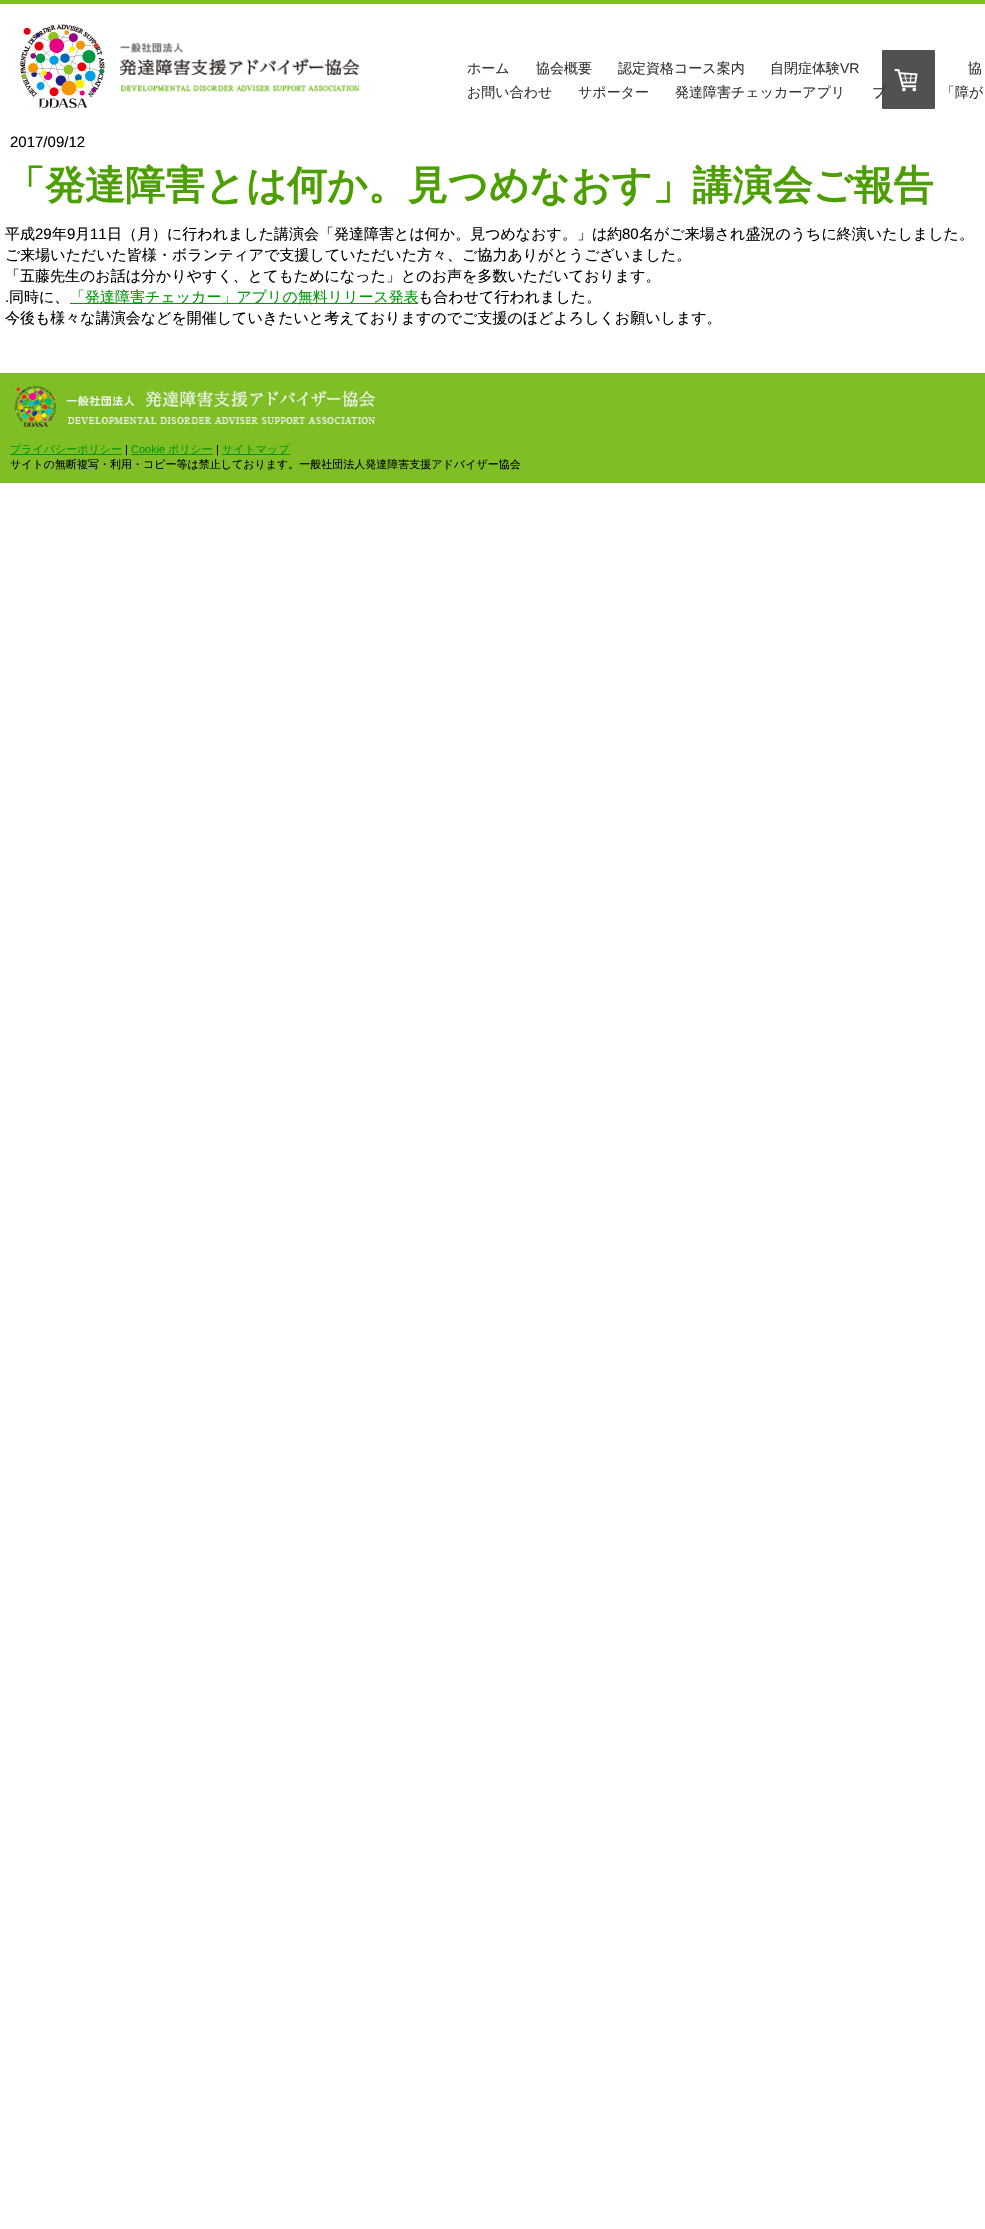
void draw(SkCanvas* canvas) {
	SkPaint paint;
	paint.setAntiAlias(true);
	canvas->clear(0xffffffff);
	paint.setColor(0xff7fbe25);
	canvas->drawRect(SkRect::MakeXYWH(0, 0, 985, 4), paint);
	canvas->drawImageRect(SkImages::DeferredFromEncodedData(SkData::MakeFromFileName("img1.png")), SkRect::MakeXYWH(20, 24, 340, 84), SkSamplingOptions());
	SkFont f1(fontMgr->matchFamilyStyle("WenQuanYi Zen Hei", SkFontStyle(500, SkFontStyle::kNormal_Width, SkFontStyle::kUpright_Slant)), 14);
	f1.setSubpixel(true);
	paint.setColor(0xff333333);
	canvas->drawString("ホーム", 467, 73, f1, paint);
	canvas->drawString("協会概要", 536, 73, f1, paint);
	canvas->drawString("認定資格コース案内", 618, 73, f1, paint);
	canvas->drawString("自閉症体験", 770, 73, f1, paint);
	SkFont f2(fontMgr->matchFamilyStyle("Liberation Sans", SkFontStyle::Normal()), 14);
	f2.setSubpixel(true);
	canvas->drawString("VR", 840, 73, f2, paint);
	canvas->drawString("協", 968, 73, f1, paint);
	canvas->drawString("お問い合わせ", 467, 97, f1, paint);
	canvas->drawString("サポーター", 578, 97, f1, paint);
	canvas->drawString("発達障害チェッカーアプリ", 675, 97, f1, paint);
	canvas->drawString("ブ", 872, 97, f1, paint);
	canvas->drawString("「障が", 941, 97, f1, paint);
	SkFont f3(fontMgr->matchFamilyStyle("Liberation Sans", SkFontStyle::Normal()), 15);
	f3.setSubpixel(true);
	paint.setColor(0xff000000);
	canvas->drawString("2017/09/12", 10, 147, f3, paint);
	SkFont f4(fontMgr->matchFamilyStyle("WenQuanYi Zen Hei", SkFontStyle::Bold()), 40);
	f4.setSubpixel(true);
	paint.setColor(0xff4c9f00);
	canvas->drawString("「発達障害とは何か。見つめなおす」講演会ご報告", 5, 199, f4, paint);
	SkFont f5(fontMgr->matchFamilyStyle("WenQuanYi Zen Hei", SkFontStyle(500, SkFontStyle::kNormal_Width, SkFontStyle::kUpright_Slant)), 15);
	f5.setSubpixel(true);
	paint.setColor(0xff000000);
	canvas->drawString("平成", 5, 239, f5, paint);
	canvas->drawString("29", 35, 239, f3, paint);
	canvas->drawString("年", 52, 239, f5, paint);
	canvas->drawString("9", 67, 239, f3, paint);
	canvas->drawString("月", 75, 239, f5, paint);
	canvas->drawString("11", 90, 239, f3, paint);
	canvas->drawString("日（月）に行われました講演会「発達障害とは何か。見つめなおす。」は約", 107, 239, f5, paint);
	canvas->drawString("80", 622, 239, f3, paint);
	canvas->drawString("名がご来場され盛況のうちに終演いたしました。", 639, 239, f5, paint);
	canvas->drawString("ご来場いただいた皆様・ボランティアで支援していただいた方々、ご協力ありがとうございました。", 5, 260, f5, paint);
	canvas->drawString("「五藤先生のお話は分かりやすく、とてもためになった」とのお声を多数いただいております。", 5, 281, f5, paint);
	canvas->drawString(".", 5, 302, f3, paint);
	canvas->drawString("同時に、", 9, 302, f5, paint);
	paint.setColor(0xff009806);
	canvas->drawRect(SkRect::MakeXYWH(70, 303, 348, 1), paint);
	canvas->drawString("「発達障害チェッカー」アプリの無料リリース発表", 70, 302, f5, paint);
	paint.setColor(0xff000000);
	canvas->drawString("も合わせて行われました。", 418, 302, f5, paint);
	canvas->drawString("今後も様々な講演会などを開催していきたいと考えておりますのでご支援のほどよろしくお願いします。", 5, 323, f5, paint);
	paint.setColor(0xff7fbe25);
	canvas->drawRect(SkRect::MakeXYWH(0, 373, 985, 110), paint);
	paint.setColor(0xd9333333);
	canvas->drawRoundRect(SkRect::MakeXYWH(882, 50, 53, 59), 1, 1, paint);
	canvas->drawImageRect(SkImages::DeferredFromEncodedData(SkData::MakeFromFileName("img2.png")), SkRect::MakeXYWH(894, 69, 24, 23), SkSamplingOptions());
	canvas->drawImageRect(SkImages::DeferredFromEncodedData(SkData::MakeFromFileName("img3.png")), SkRect::MakeXYWH(10, 383, 368, 48), SkSamplingOptions());
	paint.setColor(0xff009806);
	canvas->drawRect(SkRect::MakeXYWH(10, 454, 112, 1), paint);
	SkFont f6(fontMgr->matchFamilyStyle("WenQuanYi Zen Hei", SkFontStyle(500, SkFontStyle::kNormal_Width, SkFontStyle::kUpright_Slant)), 11);
	f6.setSubpixel(true);
	canvas->drawString("プライバシーポリシー", 10, 453, f6, paint);
	SkFont f7(fontMgr->matchFamilyStyle("Liberation Sans", SkFontStyle::Normal()), 11);
	f7.setSubpixel(true);
	paint.setColor(0xff000000);
	canvas->drawString("|", 125, 453, f7, paint);
	paint.setColor(0xff009806);
	canvas->drawString("Cookie", 131, 453, f7, paint);
	canvas->drawRect(SkRect::MakeXYWH(131, 454, 82, 1), paint);
	canvas->drawString("ポリシー", 168, 453, f6, paint);
	paint.setColor(0xff000000);
	canvas->drawString("|", 216, 453, f7, paint);
	paint.setColor(0xff009806);
	canvas->drawRect(SkRect::MakeXYWH(222, 454, 68, 1), paint);
	canvas->drawString("サイトマップ", 222, 453, f6, paint);
	paint.setColor(0xff000000);
	canvas->drawString("サイトの無断複写・利用・コピー等は禁止しております。一般社団法人発達障害支援アドバイザー協会", 10, 468, f6, paint);
}
